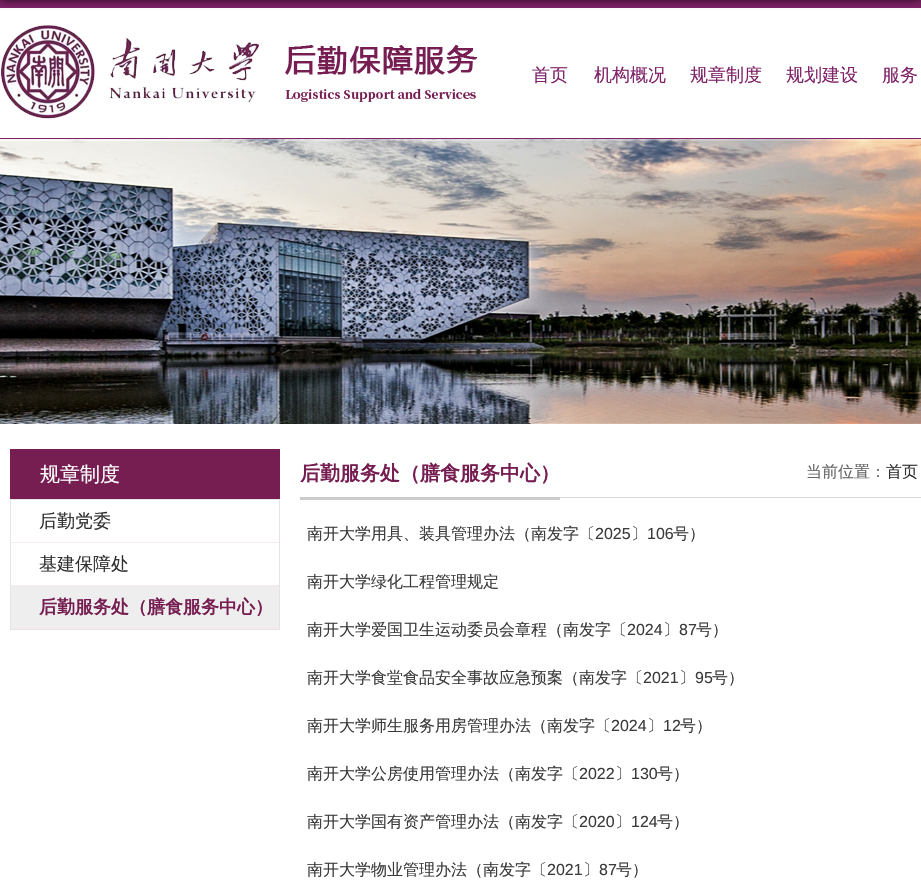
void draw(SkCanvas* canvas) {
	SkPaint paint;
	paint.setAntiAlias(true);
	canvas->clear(0xffffffff);
	paint.setColor(0xff7f2268);
	canvas->drawRect(SkRect::MakeXYWH(0, 0, 921, 8), paint);
	paint.setColor(0xcc000000);
	paint.setMaskFilter(SkMaskFilter::MakeBlur(kNormal_SkBlurStyle, 5));
	canvas->drawRect(SkRect::MakeXYWH(0, -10, 921, 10), paint);
	paint.setMaskFilter(nullptr);
	paint.setColor(0xff7f2268);
	canvas->drawRect(SkRect::MakeXYWH(0, 138, 921, 1), paint);
	canvas->drawImageRect(SkImages::DeferredFromEncodedData(SkData::MakeFromFileName("img1.png")), SkRect::MakeXYWH(0, 25, 478, 94), SkSamplingOptions());
	SkFont f1(fontMgr->matchFamilyStyle("WenQuanYi Zen Hei", SkFontStyle(500, SkFontStyle::kNormal_Width, SkFontStyle::kUpright_Slant)), 18);
	f1.setSubpixel(true);
	canvas->drawString("首页", 532, 81, f1, paint);
	canvas->drawString("机构概况", 594, 81, f1, paint);
	canvas->drawString("规章制度", 690, 81, f1, paint);
	canvas->drawString("规划建设", 786, 81, f1, paint);
	canvas->drawString("服务", 882, 81, f1, paint);
	canvas->drawImageRect(SkImages::DeferredFromEncodedData(SkData::MakeFromFileName("img2.png")), SkRect::MakeXYWH(0, 139, 921, 285), SkSamplingOptions());
	paint.setColor(0xff761e51);
	canvas->drawRect(SkRect::MakeXYWH(10, 449, 270, 50), paint);
	SkFont f2(fontMgr->matchFamilyStyle("WenQuanYi Zen Hei", SkFontStyle(500, SkFontStyle::kNormal_Width, SkFontStyle::kUpright_Slant)), 20);
	f2.setSubpixel(true);
	paint.setColor(0xffffffff);
	canvas->drawString("规章制度", 40, 481, f2, paint);
	paint.setStroke(true);
	paint.setStrokeWidth(1);
	paint.setColor(0xffe4e4e4);
	canvas->drawRect(SkRect::MakeXYWH(10.5, 499.5, 269, 130), paint);
	paint.setStroke(false);
	paint.setColor(0xfff6eaea);
	canvas->drawRect(SkRect::MakeXYWH(11, 542, 268, 1), paint);
	paint.setColor(0xff2f2f2f);
	canvas->drawString("后勤党委", 39, 527, f1, paint);
	paint.setColor(0xfff6eaea);
	canvas->drawRect(SkRect::MakeXYWH(11, 585, 268, 1), paint);
	paint.setColor(0xff2f2f2f);
	canvas->drawString("基建保障处", 39, 570, f1, paint);
	paint.setColor(0xffeeeeee);
	canvas->drawRect(SkRect::MakeXYWH(11, 586, 268, 42), paint);
	paint.setColor(0xfff6eaea);
	canvas->drawRect(SkRect::MakeXYWH(11, 628, 268, 1), paint);
	SkFont f3(fontMgr->matchFamilyStyle("WenQuanYi Zen Hei", SkFontStyle::Bold()), 18);
	f3.setSubpixel(true);
	paint.setColor(0xff761e51);
	canvas->drawString("后勤服务处（膳食服务中心）", 39, 613, f3, paint);
	paint.setColor(0xffdbdbdb);
	canvas->drawRect(SkRect::MakeXYWH(560, 497, 361, 1), paint);
	paint.setColor(0xffcbcbcb);
	canvas->drawRect(SkRect::MakeXYWH(300, 497, 260, 3), paint);
	SkFont f4(fontMgr->matchFamilyStyle("WenQuanYi Zen Hei", SkFontStyle::Bold()), 20);
	f4.setSubpixel(true);
	paint.setColor(0xff761e51);
	canvas->drawString("后勤服务处（膳食服务中心）", 300, 480, f4, paint);
	SkFont f5(fontMgr->matchFamilyStyle("WenQuanYi Zen Hei", SkFontStyle(500, SkFontStyle::kNormal_Width, SkFontStyle::kUpright_Slant)), 16);
	f5.setSubpixel(true);
	paint.setColor(0xff666666);
	canvas->drawString("当前位置：", 806, 477, f5, paint);
	paint.setColor(0xff2f2f2f);
	canvas->drawString("首页", 886, 477, f5, paint);
	paint.setColor(0xff3b3b3b);
	canvas->drawString("南开大学用具、装具管理办法（南发字〔", 307, 539, f5, paint);
	SkFont f6(fontMgr->matchFamilyStyle("Liberation Sans", SkFontStyle::Normal()), 16);
	f6.setSubpixel(true);
	canvas->drawString("2025", 595, 539, f6, paint);
	canvas->drawString("〕", 631, 539, f5, paint);
	canvas->drawString("106", 647, 539, f6, paint);
	canvas->drawString("号）", 673, 539, f5, paint);
	canvas->drawString("南开大学绿化工程管理规定", 307, 587, f5, paint);
	canvas->drawString("南开大学爱国卫生运动委员会章程（南发字〔", 307, 635, f5, paint);
	canvas->drawString("2024", 627, 635, f6, paint);
	canvas->drawString("〕", 663, 635, f5, paint);
	canvas->drawString("87", 679, 635, f6, paint);
	canvas->drawString("号）", 696, 635, f5, paint);
	canvas->drawString("南开大学食堂食品安全事故应急预案（南发字〔", 307, 683, f5, paint);
	canvas->drawString("2021", 643, 683, f6, paint);
	canvas->drawString("〕", 679, 683, f5, paint);
	canvas->drawString("95", 695, 683, f6, paint);
	canvas->drawString("号）", 712, 683, f5, paint);
	canvas->drawString("南开大学师生服务用房管理办法（南发字〔", 307, 731, f5, paint);
	canvas->drawString("2024", 611, 731, f6, paint);
	canvas->drawString("〕", 647, 731, f5, paint);
	canvas->drawString("12", 663, 731, f6, paint);
	canvas->drawString("号）", 680, 731, f5, paint);
	canvas->drawString("南开大学公房使用管理办法（南发字〔", 307, 779, f5, paint);
	canvas->drawString("2022", 579, 779, f6, paint);
	canvas->drawString("〕", 615, 779, f5, paint);
	canvas->drawString("130", 631, 779, f6, paint);
	canvas->drawString("号）", 657, 779, f5, paint);
	canvas->drawString("南开大学国有资产管理办法（南发字〔", 307, 827, f5, paint);
	canvas->drawString("2020", 579, 827, f6, paint);
	canvas->drawString("〕", 615, 827, f5, paint);
	canvas->drawString("124", 631, 827, f6, paint);
	canvas->drawString("号）", 657, 827, f5, paint);
	canvas->drawString("南开大学物业管理办法（南发字〔", 307, 875, f5, paint);
	canvas->drawString("2021", 547, 875, f6, paint);
	canvas->drawString("〕", 583, 875, f5, paint);
	canvas->drawString("87", 599, 875, f6, paint);
	canvas->drawString("号）", 616, 875, f5, paint);
}
